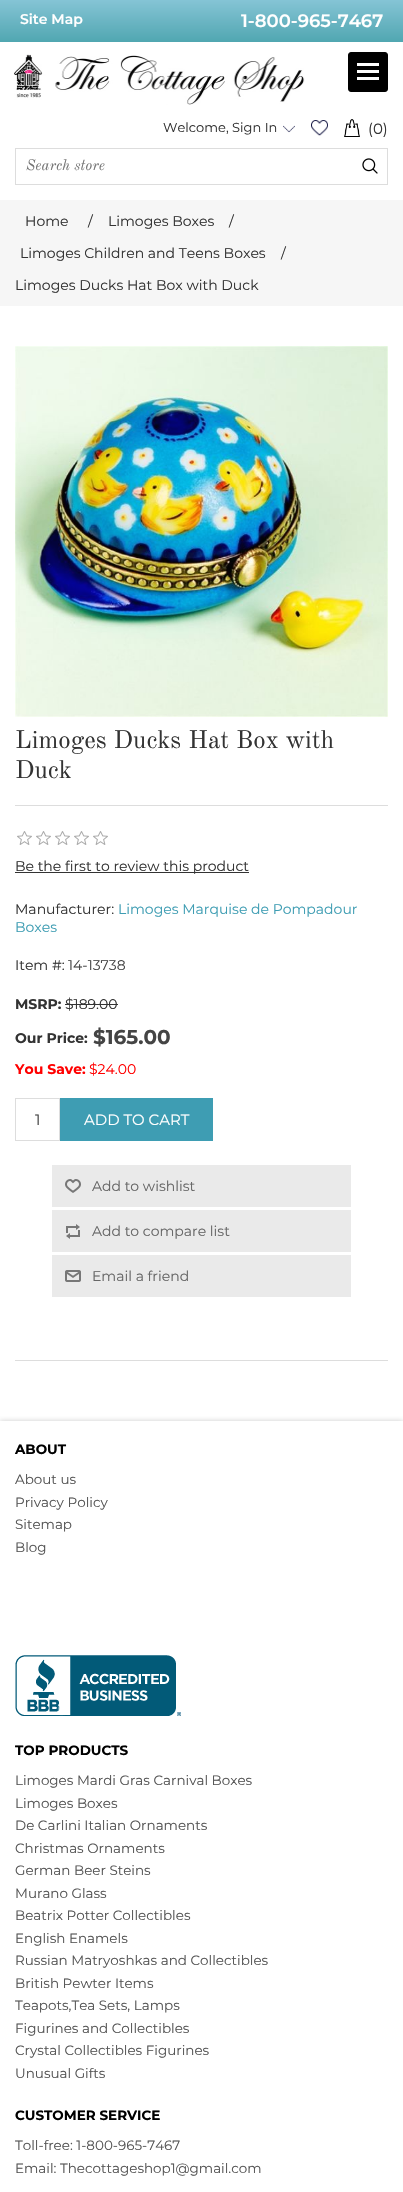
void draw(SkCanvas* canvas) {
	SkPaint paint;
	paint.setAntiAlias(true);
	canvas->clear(0xffffffff);
	{
		const SkColor colors[] = {0xff85c4d5, 0xff78bdcc, 0xff6bb5c3, 0xff5eaeba, 0xff50a7b1};
		const float stops[] = {0, 0.25, 0.5, 0.75, 1};
		const SkPoint ends[] = {{202, 0}, {202, 42}};
		paint.setShader(SkGradientShader::MakeLinear(ends, colors, stops, 5, SkTileMode::kClamp));
		paint.setAlpha(255);
	}
	canvas->drawRect(SkRect::MakeXYWH(0, 0, 403, 42), paint);
	SkFont f1(fontMgr->matchFamilyStyle("Montserrat", SkFontStyle(600, SkFontStyle::kNormal_Width, SkFontStyle::kUpright_Slant)), 14);
	f1.setSubpixel(true);
	paint.setShader(nullptr);
	paint.setColor(0xffffffff);
	canvas->drawString("Site Map", 20, 24, f1, paint);
	SkFont f2(fontMgr->matchFamilyStyle("Montserrat", SkFontStyle(600, SkFontStyle::kNormal_Width, SkFontStyle::kUpright_Slant)), 18);
	f2.setSubpixel(true);
	canvas->drawString("1-800-965-7467", 241, 27, f2, paint);
	canvas->drawImageRect(SkImages::DeferredFromEncodedData(SkData::MakeFromFileName("img1.png")), SkRect::MakeXYWH(14, 54, 291, 51), SkSamplingOptions());
	paint.setColor(0xff000000);
	canvas->drawRoundRect(SkRect::MakeXYWH(348.5, 52.5, 39, 39), 2.5, 2.5, paint);
	paint.setStroke(true);
	paint.setStrokeWidth(1);
	canvas->drawRoundRect(SkRect::MakeXYWH(348.5, 52.5, 39, 39), 2.5, 2.5, paint);
	paint.setStroke(false);
	paint.setColor(0xffffffff);
	canvas->drawRect(SkRect::MakeXYWH(357, 63, 22, 3), paint);
	canvas->drawRect(SkRect::MakeXYWH(357, 70, 22, 3), paint);
	canvas->drawRect(SkRect::MakeXYWH(357, 77, 22, 3), paint);
	SkFont f3(fontMgr->matchFamilyStyle("Montserrat", SkFontStyle::Normal()), 13);
	f3.setSubpixel(true);
	paint.setColor(0xff333333);
	canvas->drawString("Welcome, Sign In", 163, 132, f3, paint);
	canvas->drawImageRect(SkImages::DeferredFromEncodedData(SkData::MakeFromFileName("img2.png")), SkRect::MakeXYWH(283, 125, 12, 8), SkSamplingOptions());
	canvas->drawImageRect(SkImages::DeferredFromEncodedData(SkData::MakeFromFileName("img3.png")), SkRect::MakeXYWH(311, 120, 17, 16), SkSamplingOptions());
	canvas->drawImageRect(SkImages::DeferredFromEncodedData(SkData::MakeFromFileName("img4.png")), SkRect::MakeXYWH(344, 119, 16, 18), SkSamplingOptions());
	SkFont f4(fontMgr->matchFamilyStyle("Montserrat", SkFontStyle::Normal()), 15);
	f4.setSubpixel(true);
	canvas->drawString("(0)", 368, 134, f4, paint);
	paint.setStroke(true);
	paint.setColor(0xffdddddd);
	canvas->drawRect(SkRect::MakeXYWH(15.5, 148.5, 372, 36), paint);
	SkFont f5(fontMgr->matchFamilyStyle("Old Standard TT", SkFontStyle::Italic()), 15);
	f5.setSubpixel(true);
	paint.setStroke(false);
	paint.setColor(0xff757575);
	canvas->drawString("Search store", 26, 170, f5, paint);
	canvas->drawImageRect(SkImages::DeferredFromEncodedData(SkData::MakeFromFileName("img5.png")), SkRect::MakeXYWH(362, 158, 16, 16), SkSamplingOptions());
	paint.setColor(0xfff6f6f6);
	canvas->drawRect(SkRect::MakeXYWH(0, 200, 403, 106), paint);
	SkFont f6(fontMgr->matchFamilyStyle("Montserrat", SkFontStyle::Normal()), 14);
	f6.setSubpixel(true);
	paint.setColor(0xff333333);
	canvas->drawString("Home", 25, 226, f6, paint);
	canvas->drawString("/", 88, 226, f6, paint);
	canvas->drawString("Limoges Boxes", 108, 226, f6, paint);
	canvas->drawString("/", 229, 226, f6, paint);
	canvas->drawString("Limoges Children and Teens Boxes", 20, 258, f6, paint);
	canvas->drawString("/", 281, 258, f6, paint);
	canvas->drawString("Limoges Ducks Hat Box with Duck", 15, 290, f6, paint);
	paint.setColor(0xffdddddd);
	canvas->drawRect(SkRect::MakeXYWH(15, 1360, 373, 1), paint);
	canvas->drawImageRect(SkImages::DeferredFromEncodedData(SkData::MakeFromFileName("img6.png")), SkRect::MakeXYWH(15, 346, 373, 371), SkSamplingOptions());
	canvas->drawRect(SkRect::MakeXYWH(15, 805, 373, 1), paint);
	SkFont f7(fontMgr->matchFamilyStyle("Old Standard TT", SkFontStyle::Normal()), 25);
	f7.setSubpixel(true);
	paint.setColor(0xff333333);
	canvas->drawString("Limoges Ducks Hat Box with", 15, 748, f7, paint);
	canvas->drawString("Duck", 15, 778, f7, paint);
	canvas->drawImageRect(SkImages::DeferredFromEncodedData(SkData::MakeFromFileName("img7.png")), SkRect::MakeXYWH(17, 831, 91, 14), SkSamplingOptions());
	canvas->drawRect(SkRect::MakeXYWH(15, 872, 234, 1), paint);
	canvas->drawString("Be the first to review this product", 15, 871, f6, paint);
	canvas->drawString("Manufacturer:", 15, 914, f6, paint);
	paint.setColor(0xff3e9db3);
	canvas->drawString("Limoges Marquise de Pompadour", 118, 914, f6, paint);
	canvas->drawString("Boxes", 15, 932, f6, paint);
	paint.setColor(0xff333333);
	canvas->drawString("Item #:", 15, 970, f6, paint);
	paint.setColor(0xff444444);
	canvas->drawString("14-13738", 68, 970, f6, paint);
	SkFont f8(fontMgr->matchFamilyStyle("Montserrat", SkFontStyle::Bold()), 14);
	f8.setSubpixel(true);
	paint.setColor(0xff333333);
	canvas->drawString("MSRP:", 15, 1009, f8, paint);
	canvas->drawString("$189.00", 65, 1009, f6, paint);
	canvas->drawRect(SkRect::MakeXYWH(65, 1004, 53, 1), paint);
	canvas->drawString("Our Price:", 15, 1043, f8, paint);
	SkFont f9(fontMgr->matchFamilyStyle("Montserrat", SkFontStyle::Bold()), 20);
	f9.setSubpixel(true);
	paint.setColor(0xff444444);
	canvas->drawString("$165.00", 93, 1044, f9, paint);
	paint.setColor(0xffff0000);
	canvas->drawString("You Save:", 15, 1074, f8, paint);
	canvas->drawString("$24.00", 89, 1074, f6, paint);
	paint.setStroke(true);
	paint.setColor(0xffdddddd);
	canvas->drawRect(SkRect::MakeXYWH(15.5, 1098.5, 44, 42), paint);
	paint.setStroke(false);
	paint.setColor(0xff444444);
	canvas->drawString("1", 35, 1125, f4, paint);
	paint.setColor(0xff3e9db3);
	canvas->drawRect(SkRect::MakeXYWH(60, 1098, 153, 43), paint);
	paint.setColor(0xffffffff);
	canvas->drawString("ADD TO CART", 84, 1125, f4, paint);
	paint.setColor(0xffeaeaea);
	canvas->drawRect(SkRect::MakeXYWH(52, 1165, 299, 42), paint);
	canvas->drawImageRect(SkImages::DeferredFromEncodedData(SkData::MakeFromFileName("img8.png")), SkRect::MakeXYWH(65, 1179, 16, 14), SkSamplingOptions());
	paint.setColor(0xff666666);
	canvas->drawString("Add to wishlist", 92, 1191, f6, paint);
	paint.setColor(0xffeaeaea);
	canvas->drawRect(SkRect::MakeXYWH(52, 1210, 299, 42), paint);
	canvas->drawImageRect(SkImages::DeferredFromEncodedData(SkData::MakeFromFileName("img9.png")), SkRect::MakeXYWH(66, 1224, 14, 15), SkSamplingOptions());
	paint.setColor(0xff666666);
	canvas->drawString("Add to compare list", 92, 1236, f6, paint);
	paint.setColor(0xffeaeaea);
	canvas->drawRect(SkRect::MakeXYWH(52, 1255, 299, 42), paint);
	canvas->drawImageRect(SkImages::DeferredFromEncodedData(SkData::MakeFromFileName("img10.png")), SkRect::MakeXYWH(65, 1270, 16, 12), SkSamplingOptions());
	paint.setColor(0xff666666);
	canvas->drawString("Email a friend", 92, 1281, f6, paint);
	canvas->save();
	canvas->clipRect(SkRect::MakeXYWH(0, 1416, 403, 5));
	paint.setColor(0xffcccccc);
	paint.setMaskFilter(SkMaskFilter::MakeBlur(kNormal_SkBlurStyle, 2.5));
	canvas->drawRect(SkRect::MakeXYWH(0, 1421, 403, 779), paint);
	paint.setMaskFilter(nullptr);
	canvas->restore();
	SkFont f10(fontMgr->matchFamilyStyle("Montserrat", SkFontStyle::Bold()), 13.5);
	f10.setSubpixel(true);
	paint.setColor(0xff000000);
	canvas->drawString("ABOUT", 15, 1454, f10, paint);
	SkFont f11(fontMgr->matchFamilyStyle("Montserrat", SkFontStyle::Normal()), 13.5);
	f11.setSubpixel(true);
	paint.setColor(0xff555555);
	canvas->drawString("About us", 15, 1484, f11, paint);
	canvas->drawString("Privacy Policy", 15, 1507, f11, paint);
	canvas->drawString("Sitemap", 15, 1529, f11, paint);
	canvas->drawString("Blog", 15, 1552, f11, paint);
	canvas->drawImageRect(SkImages::DeferredFromEncodedData(SkData::MakeFromFileName("img11.png")), SkRect::MakeXYWH(15, 1655, 166, 61), SkSamplingOptions());
	paint.setColor(0xff000000);
	canvas->drawString("TOP PRODUCTS", 15, 1755, f10, paint);
	paint.setColor(0xff555555);
	canvas->drawString("Limoges Mardi Gras Carnival Boxes", 15, 1785, f11, paint);
	canvas->drawString("Limoges Boxes", 15, 1808, f11, paint);
	canvas->drawString("De Carlini Italian Ornaments", 15, 1830, f11, paint);
	canvas->drawString("Christmas Ornaments", 15, 1853, f11, paint);
	canvas->drawString("German Beer Steins", 15, 1875, f11, paint);
	canvas->drawString("Murano Glass", 15, 1898, f11, paint);
	canvas->drawString("Beatrix Potter Collectibles", 15, 1920, f11, paint);
	canvas->drawString("English Enamels", 15, 1943, f11, paint);
	canvas->drawString("Russian Matryoshkas and Collectibles", 15, 1965, f11, paint);
	canvas->drawString("British Pewter Items", 15, 1988, f11, paint);
	canvas->drawString("Teapots,Tea Sets, Lamps", 15, 2010, f11, paint);
	canvas->drawString("Figurines and Collectibles", 15, 2033, f11, paint);
	canvas->drawString("Crystal Collectibles Figurines", 15, 2055, f11, paint);
	canvas->drawString("Unusual Gifts", 15, 2078, f11, paint);
	paint.setColor(0xff000000);
	canvas->drawString("CUSTOMER SERVICE", 15, 2120, f10, paint);
	paint.setColor(0xff555555);
	canvas->drawString("Toll-free: 1-800-965-7467", 15, 2150, f11, paint);
	canvas->drawString("Email: Thecottageshop1@gmail.com", 15, 2173, f11, paint);
}
